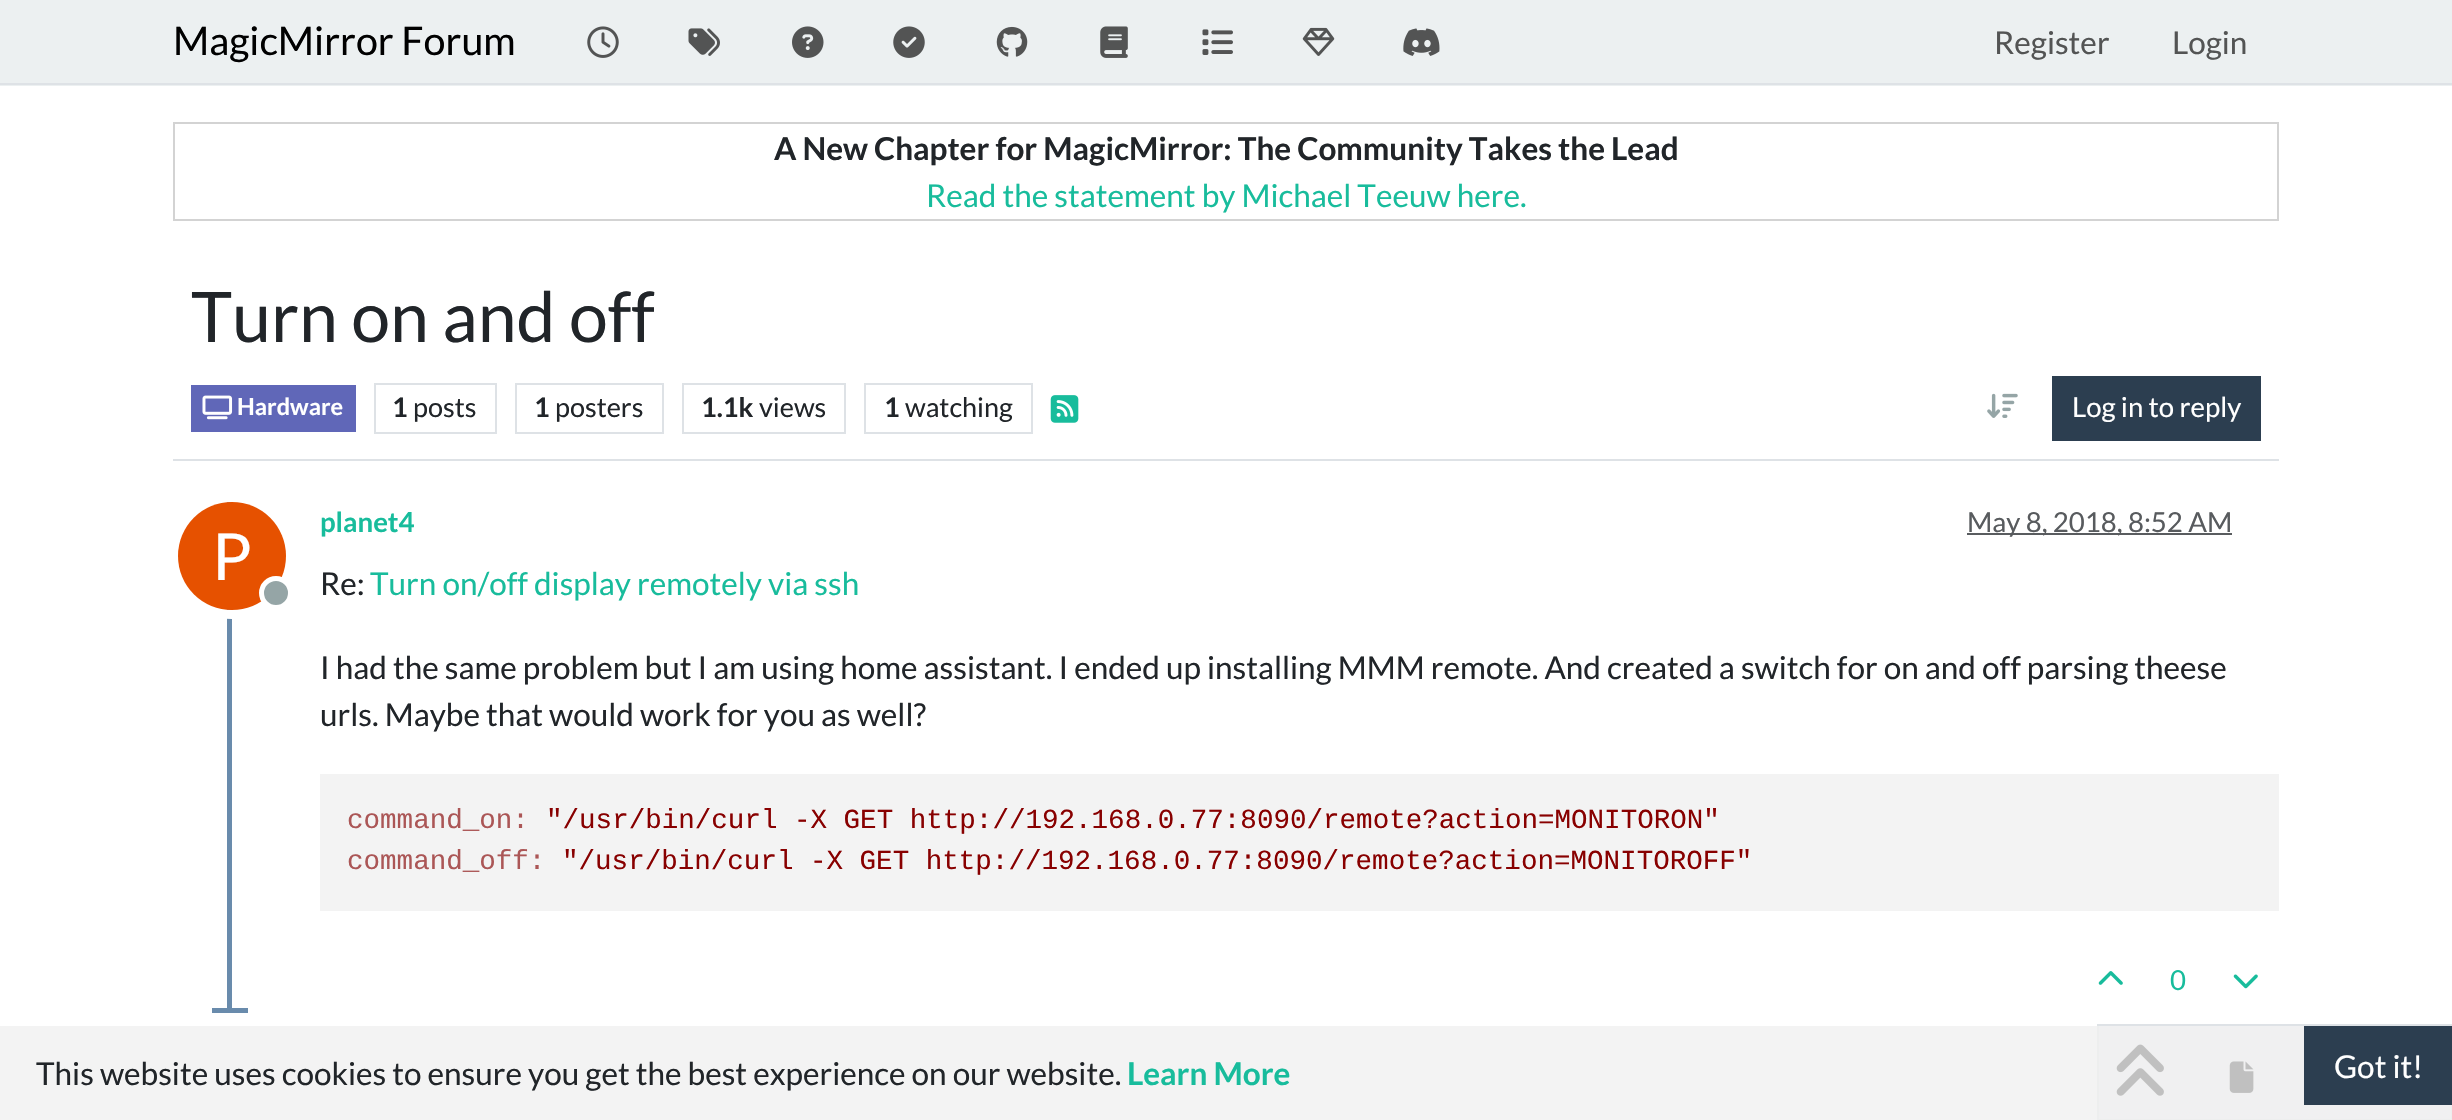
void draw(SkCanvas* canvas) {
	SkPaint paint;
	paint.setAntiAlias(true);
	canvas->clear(0xffffffff);
	paint.setColor(0xffecf0f1);
	canvas->drawRect(SkRect::MakeXYWH(0, 0, 2452, 86), paint);
	paint.setColor(0xffdee2e6);
	canvas->drawRect(SkRect::MakeXYWH(0, 83, 2452, 2), paint);
	SkFont f1(fontMgr->matchFamilyStyle("Lato", SkFontStyle::Normal()), 39.4);
	f1.setSubpixel(true);
	paint.setColor(0xff000000);
	canvas->drawString("MagicMirror Forum", 173, 55, f1, paint);
	canvas->drawImageRect(SkImages::DeferredFromEncodedData(SkData::MakeFromFileName("img1.png")), SkRect::MakeXYWH(587, 26, 32, 32), SkSamplingOptions());
	canvas->drawImageRect(SkImages::DeferredFromEncodedData(SkData::MakeFromFileName("img2.png")), SkRect::MakeXYWH(688, 28, 32, 28), SkSamplingOptions());
	canvas->drawImageRect(SkImages::DeferredFromEncodedData(SkData::MakeFromFileName("img3.png")), SkRect::MakeXYWH(792, 26, 32, 32), SkSamplingOptions());
	canvas->drawImageRect(SkImages::DeferredFromEncodedData(SkData::MakeFromFileName("img4.png")), SkRect::MakeXYWH(893, 26, 32, 32), SkSamplingOptions());
	canvas->drawImageRect(SkImages::DeferredFromEncodedData(SkData::MakeFromFileName("img5.png")), SkRect::MakeXYWH(996, 26, 32, 31), SkSamplingOptions());
	canvas->drawImageRect(SkImages::DeferredFromEncodedData(SkData::MakeFromFileName("img6.png")), SkRect::MakeXYWH(1100, 26, 28, 32), SkSamplingOptions());
	canvas->drawImageRect(SkImages::DeferredFromEncodedData(SkData::MakeFromFileName("img7.png")), SkRect::MakeXYWH(1202, 29, 31, 26), SkSamplingOptions());
	canvas->drawImageRect(SkImages::DeferredFromEncodedData(SkData::MakeFromFileName("img8.png")), SkRect::MakeXYWH(1302, 27, 33, 29), SkSamplingOptions());
	canvas->drawImageRect(SkImages::DeferredFromEncodedData(SkData::MakeFromFileName("img9.png")), SkRect::MakeXYWH(1403, 28, 37, 28), SkSamplingOptions());
	SkFont f2(fontMgr->matchFamilyStyle("Lato", SkFontStyle::Normal()), 31.5);
	f2.setSubpixel(true);
	paint.setColor(0xff535454);
	canvas->drawString("Register", 1994, 54, f2, paint);
	canvas->drawString("Login", 2172, 54, f2, paint);
	paint.setStroke(true);
	paint.setStrokeWidth(2);
	paint.setColor(0xffd3d3d3);
	canvas->drawRect(SkRect::MakeXYWH(174, 123, 2104, 97), paint);
	SkFont f3(fontMgr->matchFamilyStyle("Lato", SkFontStyle::Bold()), 31.5);
	f3.setSubpixel(true);
	paint.setStroke(false);
	paint.setColor(0xff212529);
	canvas->drawString("A New Chapter for MagicMirror: The Community Takes the Lead", 774, 160, f3, paint);
	paint.setColor(0xff18bc9c);
	canvas->drawString("Read the statement by Michael Teeuw here.", 926, 207, f2, paint);
	paint.setColor(0xffdee2e6);
	canvas->drawRect(SkRect::MakeXYWH(173, 459, 2106, 2), paint);
	SkFont f4(fontMgr->matchFamilyStyle("Lato", SkFontStyle::Normal()), 69.75);
	f4.setSubpixel(true);
	paint.setColor(0xff212529);
	canvas->drawString("Turn on and off", 191, 342, f4, paint);
	paint.setColor(0xff6067b8);
	canvas->drawRect(SkRect::MakeXYWH(191, 385, 165, 47), paint);
	canvas->drawImageRect(SkImages::DeferredFromEncodedData(SkData::MakeFromFileName("img10.png")), SkRect::MakeXYWH(202, 395, 31, 25), SkSamplingOptions());
	SkFont f5(fontMgr->matchFamilyStyle("Lato", SkFontStyle::Bold()), 23.5);
	f5.setSubpixel(true);
	paint.setColor(0xffffffff);
	canvas->drawString("Hardware", 237, 415, f5, paint);
	paint.setStroke(true);
	paint.setColor(0xffdee2e6);
	canvas->drawRect(SkRect::MakeXYWH(375, 384, 121, 49), paint);
	SkFont f6(fontMgr->matchFamilyStyle("Lato", SkFontStyle::Bold()), 27);
	f6.setSubpixel(true);
	paint.setStroke(false);
	paint.setColor(0xff212529);
	canvas->drawString("1", 392, 417, f6, paint);
	SkFont f7(fontMgr->matchFamilyStyle("Lato", SkFontStyle::Normal()), 27);
	f7.setSubpixel(true);
	canvas->drawString("posts", 413, 417, f7, paint);
	paint.setStroke(true);
	paint.setColor(0xffdee2e6);
	canvas->drawRect(SkRect::MakeXYWH(516, 384, 147, 49), paint);
	paint.setStroke(false);
	paint.setColor(0xff212529);
	canvas->drawString("1", 534, 417, f6, paint);
	canvas->drawString("posters", 555, 417, f7, paint);
	paint.setStroke(true);
	paint.setColor(0xffdee2e6);
	canvas->drawRect(SkRect::MakeXYWH(683, 384, 162, 49), paint);
	paint.setStroke(false);
	paint.setColor(0xff212529);
	canvas->drawString("1.1k", 701, 417, f6, paint);
	canvas->drawString("views", 759, 417, f7, paint);
	paint.setStroke(true);
	paint.setColor(0xffdee2e6);
	canvas->drawRect(SkRect::MakeXYWH(865, 384, 167, 49), paint);
	paint.setStroke(false);
	paint.setColor(0xff212529);
	canvas->drawString("1", 884, 417, f6, paint);
	canvas->drawString("watching", 905, 417, f7, paint);
	canvas->drawImageRect(SkImages::DeferredFromEncodedData(SkData::MakeFromFileName("img11.png")), SkRect::MakeXYWH(1050, 395, 29, 28), SkSamplingOptions());
	canvas->drawImageRect(SkImages::DeferredFromEncodedData(SkData::MakeFromFileName("img12.png")), SkRect::MakeXYWH(1987, 393, 31, 25), SkSamplingOptions());
	paint.setColor(0xff2c3e50);
	canvas->drawRect(SkRect::MakeXYWH(2052, 376, 209, 65), paint);
	SkFont f8(fontMgr->matchFamilyStyle("Lato", SkFontStyle::Normal()), 27.55);
	f8.setSubpixel(true);
	paint.setColor(0xffffffff);
	canvas->drawString("Log in to reply", 2072, 417, f8, paint);
	paint.setColor(0xff698bac);
	canvas->drawRect(SkRect::MakeXYWH(227, 497, 5, 516), paint);
	SkFont f9(fontMgr->matchFamilyStyle("Lato", SkFontStyle::Bold()), 27.55);
	f9.setSubpixel(true);
	paint.setColor(0xff18bc9c);
	canvas->drawString("planet4", 320, 532, f9, paint);
	paint.setColor(0xff595c5f);
	canvas->drawRect(SkRect::MakeXYWH(1967, 533, 265, 2), paint);
	paint.setColor(0xff585b5e);
	canvas->drawString("May 8, 2018, 8:52 AM", 1967, 532, f8, paint);
	paint.setStroke(true);
	paint.setStrokeWidth(9);
	paint.setColor(0xffffffff);
	canvas->drawCircle(232, 556, 58.5, paint);
	paint.setStroke(false);
	paint.setColor(0xffe65100);
	canvas->drawCircle(232, 556, 54, paint);
	SkFont f10(fontMgr->matchFamilyStyle("Lato", SkFontStyle::Normal()), 65);
	f10.setSubpixel(true);
	paint.setColor(0xffffffff);
	canvas->drawString("P", 212, 580, f10, paint);
	paint.setColor(0xff95a5a6);
	canvas->drawCircle(276, 593, 14.5, paint);
	paint.setStroke(true);
	paint.setStrokeWidth(5);
	paint.setColor(0xffffffff);
	canvas->drawCircle(276, 593, 14.5, paint);
	paint.setStroke(false);
	paint.setColor(0xff212529);
	canvas->drawString("Re:", 320, 595, f2, paint);
	paint.setColor(0xff18bc9c);
	canvas->drawString("Turn on/off display remotely via ssh", 370, 595, f2, paint);
	paint.setColor(0xff212529);
	canvas->drawString("I had the same problem but I am using home assistant. I ended up installing MMM remote. And created a switch for on and off parsing theese", 320, 679, f2, paint);
	canvas->drawString("urls. Maybe that would work for you as well?", 320, 726, f2, paint);
	paint.setColor(0xfff3f3f3);
	canvas->drawRect(SkRect::MakeXYWH(320, 774, 1959, 137), paint);
	SkFont f11(fontMgr->matchFamilyStyle("Liberation Mono", SkFontStyle::Normal()), 27.55);
	f11.setSubpixel(true);
	paint.setColor(0xffab5656);
	canvas->drawString("command_on:", 347, 828, f11, paint);
	paint.setColor(0xff880000);
	canvas->drawString("\"/usr/bin/curl -X GET http://192.168.0.77:8090/remote?action=MONITORON\"", 546, 828, f11, paint);
	paint.setColor(0xffab5656);
	canvas->drawString("command_off:", 347, 869, f11, paint);
	paint.setColor(0xff880000);
	canvas->drawString("\"/usr/bin/curl -X GET http://192.168.0.77:8090/remote?action=MONITOROFF\"", 562, 869, f11, paint);
	canvas->drawImageRect(SkImages::DeferredFromEncodedData(SkData::MakeFromFileName("img13.png")), SkRect::MakeXYWH(2098, 971, 25, 14), SkSamplingOptions());
	paint.setColor(0xff18bc9c);
	canvas->drawString("0", 2170, 990, f8, paint);
	canvas->drawImageRect(SkImages::DeferredFromEncodedData(SkData::MakeFromFileName("img14.png")), SkRect::MakeXYWH(2233, 974, 25, 15), SkSamplingOptions());
	paint.setColor(0xff698bac);
	canvas->drawRect(SkRect::MakeXYWH(212, 1008, 36, 5), paint);
	paint.setColor(0xffecf0f1);
	canvas->drawRect(SkRect::MakeXYWH(2098, 1025, 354, 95), paint);
	paint.setStroke(true);
	paint.setStrokeWidth(2);
	paint.setColor(0xffdee2e6);
	canvas->drawRect(SkRect::MakeXYWH(2098, 1025, 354, 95), paint);
	canvas->drawImageRect(SkImages::DeferredFromEncodedData(SkData::MakeFromFileName("img15.png")), SkRect::MakeXYWH(2116, 1044, 48, 52), SkSamplingOptions());
	canvas->drawImageRect(SkImages::DeferredFromEncodedData(SkData::MakeFromFileName("img16.png")), SkRect::MakeXYWH(2229, 1061, 25, 32), SkSamplingOptions());
	paint.setStroke(false);
	paint.setColor(0xccf0f0f0);
	canvas->drawRect(SkRect::MakeXYWH(0, 1026, 2452, 94), paint);
	paint.setColor(0xff212529);
	canvas->drawString("This website uses cookies to ensure you get the best experience on our website.", 36, 1085, f2, paint);
	paint.setColor(0xff18bc9c);
	canvas->drawString("Learn More", 1127, 1085, f3, paint);
	paint.setColor(0xff2c3e50);
	canvas->drawRect(SkRect::MakeXYWH(2304, 1026, 148, 79), paint);
	paint.setColor(0xffffffff);
	canvas->drawString("Got it!", 2334, 1078, f2, paint);
}
